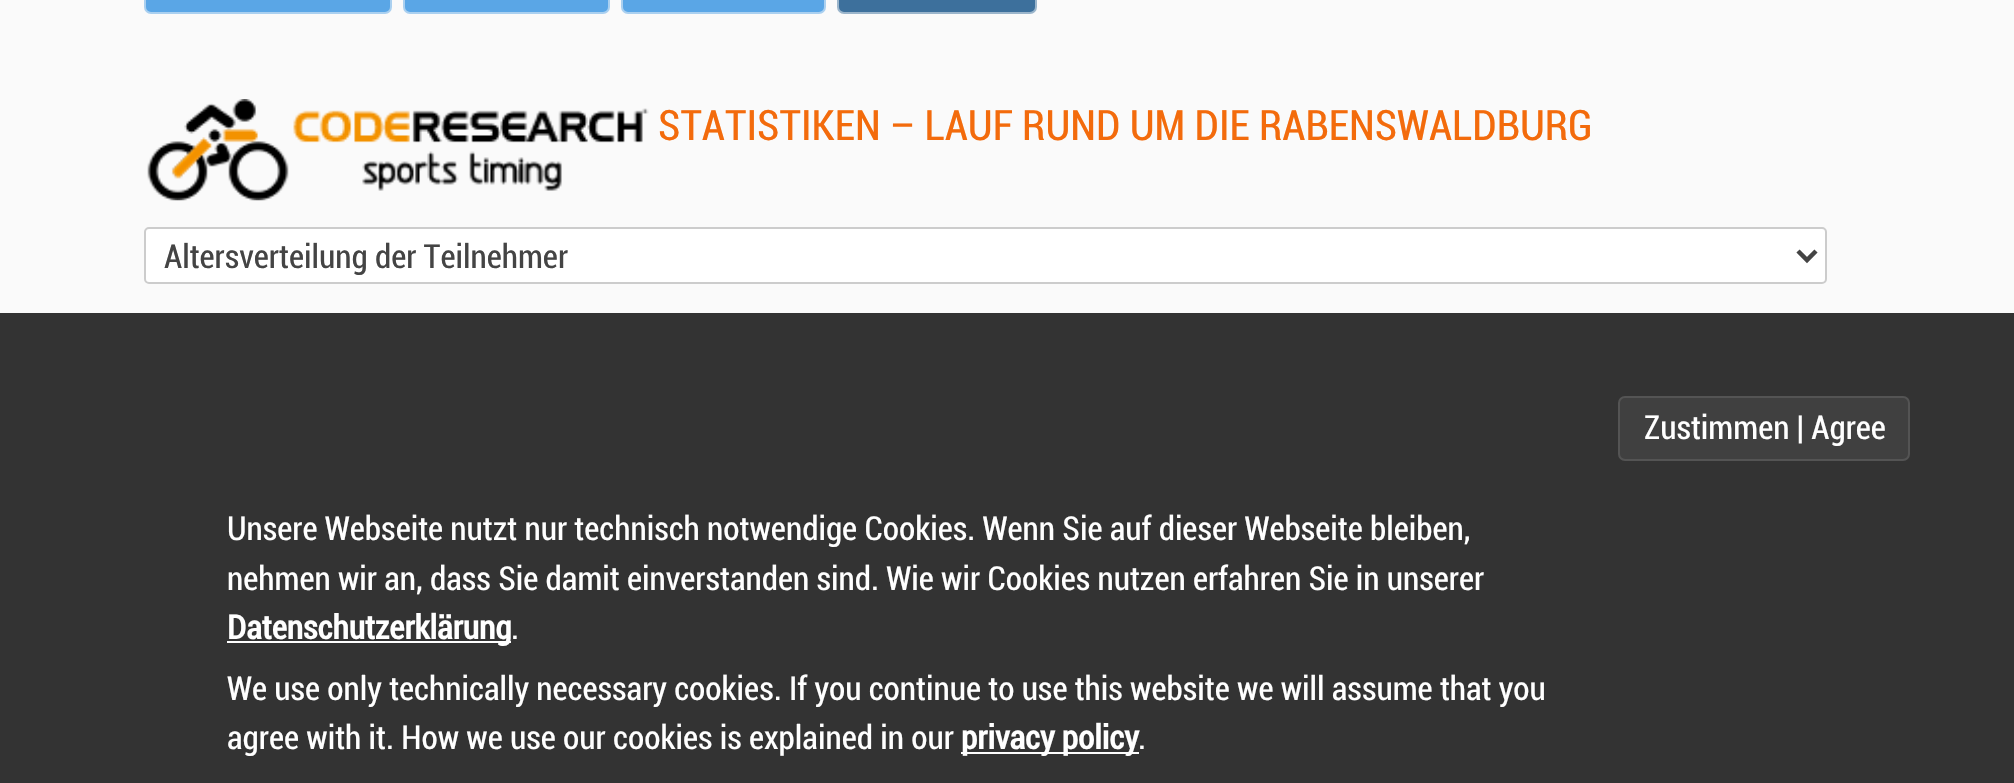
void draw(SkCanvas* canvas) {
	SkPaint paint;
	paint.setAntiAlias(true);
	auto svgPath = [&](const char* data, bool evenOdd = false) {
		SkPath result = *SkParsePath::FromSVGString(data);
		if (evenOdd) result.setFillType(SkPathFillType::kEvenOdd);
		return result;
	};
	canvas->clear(0xfffafafa);
	paint.setColor(0xff5aa6e6);
	canvas->drawRoundRect(SkRect::MakeXYWH(145, -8, 246, 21), 6, 6, paint);
	paint.setStroke(true);
	paint.setStrokeWidth(2);
	paint.setColor(0xffaad0f0);
	canvas->drawRoundRect(SkRect::MakeXYWH(145, -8, 246, 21), 6, 6, paint);
	paint.setStroke(false);
	paint.setColor(0xff5aa6e6);
	canvas->drawRoundRect(SkRect::MakeXYWH(404, -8, 205, 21), 6, 6, paint);
	paint.setStroke(true);
	paint.setColor(0xffaad0f0);
	canvas->drawRoundRect(SkRect::MakeXYWH(404, -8, 205, 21), 6, 6, paint);
	paint.setStroke(false);
	paint.setColor(0xff5aa6e6);
	canvas->drawRoundRect(SkRect::MakeXYWH(622, -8, 203, 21), 6, 6, paint);
	paint.setStroke(true);
	paint.setColor(0xffaad0f0);
	canvas->drawRoundRect(SkRect::MakeXYWH(622, -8, 203, 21), 6, 6, paint);
	paint.setStroke(false);
	paint.setColor(0xff3d709c);
	canvas->drawRoundRect(SkRect::MakeXYWH(838, -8, 198, 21), 6, 6, paint);
	paint.setStroke(true);
	paint.setColor(0xff9bb5cb);
	canvas->drawRoundRect(SkRect::MakeXYWH(838, -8, 198, 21), 6, 6, paint);
	canvas->drawImageRect(SkImages::DeferredFromEncodedData(SkData::MakeFromFileName("img1.png")), SkRect::MakeXYWH(147, 99, 502, 102), SkSamplingOptions());
	SkFont f1(fontMgr->matchFamilyStyle("Roboto", SkFontStyle::Normal()), 42);
	f1.setSubpixel(true);
	paint.setStroke(false);
	paint.setColor(0xfff36b0c);
	canvas->drawString("STATISTIKEN – LAUF RUND UM DIE RABENSWALDBURG", 658, 140, f1, paint);
	paint.setColor(0xffffffff);
	canvas->drawRoundRect(SkRect::MakeXYWH(145, 228, 1681, 55), 4, 4, paint);
	paint.setStroke(true);
	paint.setColor(0xffcccccc);
	canvas->drawRoundRect(SkRect::MakeXYWH(145, 228, 1681, 55), 4, 4, paint);
	paint.setStrokeWidth(4.5);
	paint.setColor(0xff444444);
	canvas->drawPath(svgPath("M1798 251L1807 260L1816 251"), paint);
	SkFont f2(fontMgr->matchFamilyStyle("Roboto", SkFontStyle::Normal()), 33);
	f2.setSubpixel(true);
	paint.setStroke(false);
	canvas->drawString("Altersverteilung der Teilnehmer", 164, 268, f2, paint);
	paint.setColor(0xff333333);
	canvas->drawRect(SkRect::MakeXYWH(0, 313, 2014, 470), paint);
	paint.setColor(0xff404040);
	canvas->drawRoundRect(SkRect::MakeXYWH(1619, 397, 290, 63), 6, 6, paint);
	paint.setStroke(true);
	paint.setStrokeWidth(2);
	paint.setColor(0xff545454);
	canvas->drawRoundRect(SkRect::MakeXYWH(1619, 397, 290, 63), 6, 6, paint);
	paint.setStroke(false);
	paint.setColor(0xffffffff);
	canvas->drawString("Zustimmen | Agree", 1644, 439, f2, paint);
	canvas->drawString("Unsere Webseite nutzt nur technisch notwendige Cookies. Wenn Sie auf dieser Webseite bleiben,", 227, 540, f2, paint);
	canvas->drawString("nehmen wir an, dass Sie damit einverstanden sind. Wie wir Cookies nutzen erfahren Sie in unserer", 227, 590, f2, paint);
	canvas->drawRect(SkRect::MakeXYWH(227, 641, 284, 2), paint);
	SkFont f3(fontMgr->matchFamilyStyle("Roboto", SkFontStyle::Bold()), 33);
	f3.setSubpixel(true);
	canvas->drawString("Datenschutzerklärung", 227, 639, f3, paint);
	canvas->drawString(".", 511, 639, f2, paint);
	canvas->drawString("We use only technically necessary cookies. If you continue to use this website we will assume that you", 227, 700, f2, paint);
	canvas->drawString("agree with it. How we use our cookies is explained in our", 227, 749, f2, paint);
	canvas->drawRect(SkRect::MakeXYWH(961, 752, 178, 2), paint);
	canvas->drawString("privacy policy", 961, 749, f3, paint);
	canvas->drawString(".", 1138, 749, f2, paint);
}
